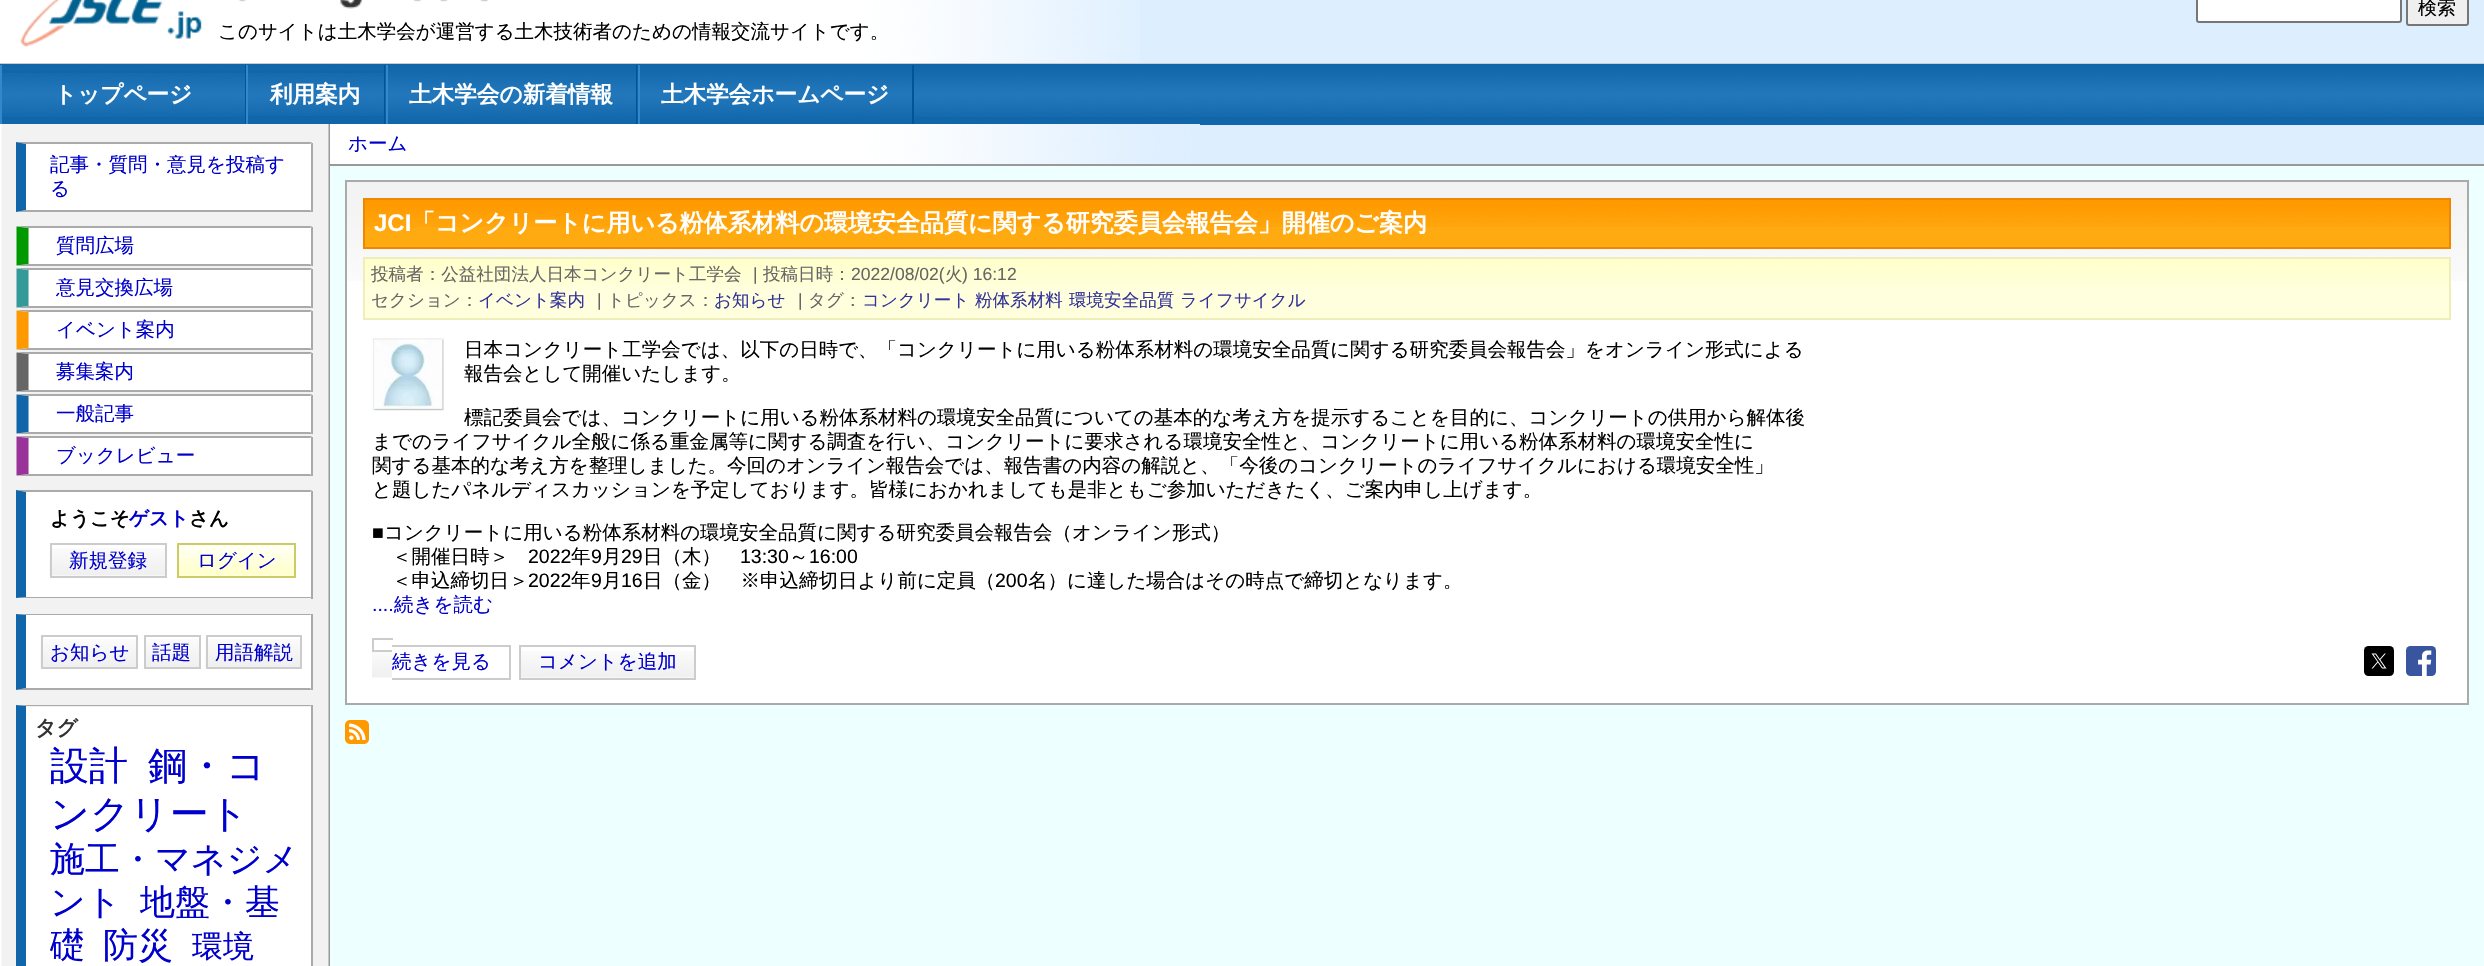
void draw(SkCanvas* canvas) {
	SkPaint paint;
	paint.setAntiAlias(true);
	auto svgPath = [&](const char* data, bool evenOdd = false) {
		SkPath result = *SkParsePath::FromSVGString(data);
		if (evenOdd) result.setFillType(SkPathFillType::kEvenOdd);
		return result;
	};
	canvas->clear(0xffeeffff);
	paint.setColor(0xffddeeff);
	canvas->drawRect(SkRect::MakeXYWH(1140, 0, 1344, 63), paint);
	canvas->drawImageRect(SkImages::DeferredFromEncodedData(SkData::MakeFromFileName("img1.png")), SkRect::MakeXYWH(0, 0, 1140, 63), SkSamplingOptions());
	paint.setColor(0xffcccccc);
	canvas->drawRect(SkRect::MakeXYWH(0, 63, 2484, 1), paint);
	paint.setColor(0xffffffff);
	canvas->drawRoundRect(SkRect::MakeXYWH(2197, -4, 204, 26), 2, 2, paint);
	paint.setStroke(true);
	paint.setStrokeWidth(2);
	paint.setColor(0xff767676);
	canvas->drawRoundRect(SkRect::MakeXYWH(2197, -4, 204, 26), 2, 2, paint);
	paint.setStroke(false);
	paint.setColor(0xffefefef);
	canvas->drawRoundRect(SkRect::MakeXYWH(2407, -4, 61, 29), 2, 2, paint);
	paint.setStroke(true);
	paint.setColor(0xff767676);
	canvas->drawRoundRect(SkRect::MakeXYWH(2407, -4, 61, 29), 2, 2, paint);
	SkFont f1(fontMgr->matchFamilyStyle("WenQuanYi Zen Hei", SkFontStyle(500, SkFontStyle::kNormal_Width, SkFontStyle::kUpright_Slant)), 19);
	f1.setSubpixel(true);
	paint.setStroke(false);
	paint.setColor(0xff000000);
	canvas->drawString("検索", 2418, 14, f1, paint);
	canvas->drawImageRect(SkImages::DeferredFromEncodedData(SkData::MakeFromFileName("img2.png")), SkRect::MakeXYWH(20, 0, 182, 47), SkSamplingOptions());
	canvas->drawImageRect(SkImages::DeferredFromEncodedData(SkData::MakeFromFileName("img3.png")), SkRect::MakeXYWH(238, 0, 250, 9), SkSamplingOptions());
	SkFont f2(fontMgr->matchFamilyStyle("WenQuanYi Zen Hei", SkFontStyle(500, SkFontStyle::kNormal_Width, SkFontStyle::kUpright_Slant)), 19.5);
	f2.setSubpixel(true);
	canvas->drawString("このサイトは土木学会が運営する土木技術者のための情報交流サイトです。", 218, 38, f2, paint);
	paint.setColor(0xff1166aa);
	canvas->drawRect(SkRect::MakeXYWH(914, 117, 1570, 8), paint);
	canvas->drawImageRect(SkImages::DeferredFromEncodedData(SkData::MakeFromFileName("img4.png")), SkRect::MakeXYWH(0, 64, 2484, 53), SkSamplingOptions());
	canvas->drawRect(SkRect::MakeXYWH(2, 70, 243, 54), paint);
	canvas->drawImageRect(SkImages::DeferredFromEncodedData(SkData::MakeFromFileName("img5.png")), SkRect::MakeXYWH(2, 73, 243, 44), SkSamplingOptions());
	paint.setColor(0xff005599);
	canvas->drawRect(SkRect::MakeXYWH(245, 65, 1, 60), paint);
	paint.setColor(0xff3388cc);
	canvas->drawRect(SkRect::MakeXYWH(0, 65, 2, 60), paint);
	SkFont f3(fontMgr->matchFamilyStyle("WenQuanYi Zen Hei", SkFontStyle::Bold()), 22.6);
	f3.setSubpixel(true);
	paint.setColor(0xffffffff);
	canvas->drawString("トップページ", 54, 102, f3, paint);
	paint.setColor(0xff1166aa);
	canvas->drawRect(SkRect::MakeXYWH(248, 70, 136, 54), paint);
	canvas->drawImageRect(SkImages::DeferredFromEncodedData(SkData::MakeFromFileName("img6.png")), SkRect::MakeXYWH(248, 73, 136, 43), SkSamplingOptions());
	paint.setColor(0xff005599);
	canvas->drawRect(SkRect::MakeXYWH(384, 65, 2, 60), paint);
	paint.setColor(0xff3388cc);
	canvas->drawRect(SkRect::MakeXYWH(246, 65, 2, 60), paint);
	paint.setColor(0xffffffff);
	canvas->drawString("利用案内", 270, 102, f3, paint);
	canvas->drawImageRect(SkImages::DeferredFromEncodedData(SkData::MakeFromFileName("img7.png")), SkRect::MakeXYWH(385, 65, 251, 59), SkSamplingOptions());
	paint.setColor(0xff005599);
	canvas->drawRect(SkRect::MakeXYWH(636, 65, 2, 60), paint);
	paint.setColor(0xff3388cc);
	canvas->drawRect(SkRect::MakeXYWH(386, 65, 2, 60), paint);
	paint.setColor(0xffffffff);
	canvas->drawString("土木学会の新着情報", 409, 102, f3, paint);
	canvas->drawImageRect(SkImages::DeferredFromEncodedData(SkData::MakeFromFileName("img8.png")), SkRect::MakeXYWH(637, 65, 275, 59), SkSamplingOptions());
	paint.setColor(0xff005599);
	canvas->drawRect(SkRect::MakeXYWH(912, 65, 2, 60), paint);
	paint.setColor(0xff3388cc);
	canvas->drawRect(SkRect::MakeXYWH(638, 65, 2, 60), paint);
	paint.setColor(0xffffffff);
	canvas->drawString("土木学会ホームページ", 661, 102, f3, paint);
	canvas->drawImageRect(SkImages::DeferredFromEncodedData(SkData::MakeFromFileName("img9.png")), SkRect::MakeXYWH(0, 775, 330, 191), SkSamplingOptions());
	canvas->drawImageRect(SkImages::DeferredFromEncodedData(SkData::MakeFromFileName("img15.png")), SkRect::MakeXYWH(0, 124, 330, 651), SkSamplingOptions());
	canvas->drawRect(SkRect::MakeXYWH(26, 144, 285, 66), paint);
	paint.setColor(0xffaaaaaa);
	canvas->drawPath(svgPath("M16 142H312L310 144H26Z"), paint);
	canvas->drawRect(SkRect::MakeXYWH(311, 143, 2, 69), paint);
	canvas->drawPath(svgPath("M312 212H16L26 210H310Z"), paint);
	paint.setColor(0xff1166aa);
	canvas->drawPath(svgPath("M16 212V142L26 144V210Z"), paint);
	paint.setColor(0xff0000cc);
	canvas->drawString("記事・質問・意見を投稿す", 50, 171, f2, paint);
	canvas->drawString("る", 50, 195, f2, paint);
	paint.setColor(0xffffffff);
	canvas->drawRect(SkRect::MakeXYWH(29, 228, 282, 36), paint);
	paint.setColor(0xffaaaaaa);
	canvas->drawPath(svgPath("M16 226H312L310 228H28Z"), paint);
	canvas->drawRect(SkRect::MakeXYWH(311, 227, 2, 39), paint);
	canvas->drawPath(svgPath("M312 266H16L28 264H310Z"), paint);
	paint.setColor(0xff009900);
	canvas->drawPath(svgPath("M16.5 265.5V226.5L28.5 228V264Z"), paint);
	paint.setColor(0xff0000cc);
	canvas->drawString("質問広場", 56, 252, f2, paint);
	paint.setColor(0xffffffff);
	canvas->drawRect(SkRect::MakeXYWH(29, 270, 282, 36), paint);
	paint.setColor(0xffaaaaaa);
	canvas->drawPath(svgPath("M16 268H312L310 270H28Z"), paint);
	canvas->drawRect(SkRect::MakeXYWH(311, 269, 2, 39), paint);
	canvas->drawPath(svgPath("M312 308H16L28 306H310Z"), paint);
	paint.setColor(0xff339999);
	canvas->drawPath(svgPath("M16.5 307.5V268.5L28.5 270V306Z"), paint);
	paint.setColor(0xff0000cc);
	canvas->drawString("意見交換広場", 56, 294, f2, paint);
	paint.setColor(0xffffffff);
	canvas->drawRect(SkRect::MakeXYWH(29, 312, 282, 36), paint);
	paint.setColor(0xffaaaaaa);
	canvas->drawPath(svgPath("M16 310H312L310 312H28Z"), paint);
	canvas->drawRect(SkRect::MakeXYWH(311, 311, 2, 39), paint);
	canvas->drawPath(svgPath("M312 350H16L28 348H310Z"), paint);
	paint.setColor(0xffff9900);
	canvas->drawPath(svgPath("M16.5 349.5V310.5L28.5 312V348Z"), paint);
	paint.setColor(0xff0000cc);
	canvas->drawString("イベント案内", 56, 336, f2, paint);
	paint.setColor(0xffffffff);
	canvas->drawRect(SkRect::MakeXYWH(29, 354, 282, 36), paint);
	paint.setColor(0xffaaaaaa);
	canvas->drawPath(svgPath("M16 352H312L310 354H28Z"), paint);
	canvas->drawRect(SkRect::MakeXYWH(311, 353, 2, 39), paint);
	canvas->drawPath(svgPath("M312 392H16L28 390H310Z"), paint);
	paint.setColor(0xff666666);
	canvas->drawPath(svgPath("M16.5 391.5V352.5L28.5 354V390Z"), paint);
	paint.setColor(0xff0000cc);
	canvas->drawString("募集案内", 56, 378, f2, paint);
	paint.setColor(0xffffffff);
	canvas->drawRect(SkRect::MakeXYWH(29, 396, 282, 36), paint);
	paint.setColor(0xffaaaaaa);
	canvas->drawPath(svgPath("M16 394H312L310 396H28Z"), paint);
	canvas->drawRect(SkRect::MakeXYWH(311, 395, 2, 39), paint);
	canvas->drawPath(svgPath("M312 434H16L28 432H310Z"), paint);
	paint.setColor(0xff1166aa);
	canvas->drawPath(svgPath("M16.5 433.5V394.5L28.5 396V432Z"), paint);
	paint.setColor(0xff0000cc);
	canvas->drawString("一般記事", 56, 420, f2, paint);
	paint.setColor(0xffffffff);
	canvas->drawRect(SkRect::MakeXYWH(29, 438, 282, 36), paint);
	paint.setColor(0xffaaaaaa);
	canvas->drawPath(svgPath("M16 436H312L310 438H28Z"), paint);
	canvas->drawRect(SkRect::MakeXYWH(311, 437, 2, 39), paint);
	canvas->drawPath(svgPath("M312 476H16L28 474H310Z"), paint);
	paint.setColor(0xff993399);
	canvas->drawPath(svgPath("M16.5 475.5V436.5L28.5 438V474Z"), paint);
	paint.setColor(0xff0000cc);
	canvas->drawString("ブックレビュー", 56, 462, f2, paint);
	paint.setColor(0xffffffff);
	canvas->drawRect(SkRect::MakeXYWH(26, 492, 285, 105), paint);
	paint.setColor(0xffaaaaaa);
	canvas->drawPath(svgPath("M16 490H312L310 492H26Z"), paint);
	canvas->drawRect(SkRect::MakeXYWH(311, 491, 2, 108), paint);
	canvas->drawPath(svgPath("M312 598H16L26 597H310Z"), paint);
	paint.setColor(0xff1166aa);
	canvas->drawPath(svgPath("M16 598V490L26 492V597Z"), paint);
	SkFont f4(fontMgr->matchFamilyStyle("WenQuanYi Zen Hei", SkFontStyle::Bold()), 19.5);
	f4.setSubpixel(true);
	paint.setColor(0xff000000);
	canvas->drawString("ようこそ", 50, 525, f4, paint);
	paint.setColor(0xff0000cc);
	canvas->drawString("ゲスト", 129, 525, f4, paint);
	paint.setColor(0xff000000);
	canvas->drawString("さん", 189, 525, f4, paint);
	canvas->drawImageRect(SkImages::DeferredFromEncodedData(SkData::MakeFromFileName("img10.png")), SkRect::MakeXYWH(49, 548, 116, 28), SkSamplingOptions());
	canvas->drawImageRect(SkImages::DeferredFromEncodedData(SkData::MakeFromFileName("img11.png")), SkRect::MakeXYWH(179, 545, 115, 31), SkSamplingOptions());
	paint.setStroke(true);
	paint.setColor(0xffcccccc);
	canvas->drawRect(SkRect::MakeXYWH(51, 544, 115, 33), paint);
	paint.setStroke(false);
	paint.setColor(0xff0000cc);
	canvas->drawString("新規登録", 69, 567, f2, paint);
	paint.setStroke(true);
	paint.setColor(0xffcccc66);
	canvas->drawRect(SkRect::MakeXYWH(178, 544, 117, 33), paint);
	paint.setStroke(false);
	paint.setColor(0xff0000cc);
	canvas->drawString("ログイン", 197, 567, f2, paint);
	paint.setColor(0xffffffff);
	canvas->drawRect(SkRect::MakeXYWH(26, 615, 285, 74), paint);
	paint.setColor(0xffaaaaaa);
	canvas->drawPath(svgPath("M16 614H312L310 615H26Z"), paint);
	canvas->drawRect(SkRect::MakeXYWH(311, 614, 2, 76), paint);
	canvas->drawPath(svgPath("M312 690H16L26 688H310Z"), paint);
	paint.setColor(0xff1166aa);
	canvas->drawPath(svgPath("M16 690V614L26 615V688Z"), paint);
	canvas->drawImageRect(SkImages::DeferredFromEncodedData(SkData::MakeFromFileName("img12.png")), SkRect::MakeXYWH(40, 639, 96, 28), SkSamplingOptions());
	canvas->drawImageRect(SkImages::DeferredFromEncodedData(SkData::MakeFromFileName("img13.png")), SkRect::MakeXYWH(146, 639, 53, 28), SkSamplingOptions());
	canvas->drawImageRect(SkImages::DeferredFromEncodedData(SkData::MakeFromFileName("img14.png")), SkRect::MakeXYWH(205, 639, 95, 28), SkSamplingOptions());
	paint.setStroke(true);
	paint.setColor(0xffcccccc);
	canvas->drawRect(SkRect::MakeXYWH(42, 636, 95, 32), paint);
	paint.setStroke(false);
	paint.setColor(0xff0000cc);
	canvas->drawString("お知らせ", 50, 659, f2, paint);
	paint.setStroke(true);
	paint.setColor(0xffcccccc);
	canvas->drawRect(SkRect::MakeXYWH(145, 636, 55, 32), paint);
	paint.setStroke(false);
	paint.setColor(0xff0000cc);
	canvas->drawString("話題", 152, 659, f2, paint);
	paint.setStroke(true);
	paint.setColor(0xffcccccc);
	canvas->drawRect(SkRect::MakeXYWH(207, 636, 94, 32), paint);
	paint.setStroke(false);
	paint.setColor(0xff0000cc);
	canvas->drawString("用語解説", 215, 659, f2, paint);
	paint.setColor(0xffffffff);
	canvas->drawRect(SkRect::MakeXYWH(26, 707, 285, 259), paint);
	paint.setColor(0xffaaaaaa);
	canvas->drawPath(svgPath("M16 705H312L310 706H26Z"), paint);
	canvas->drawRect(SkRect::MakeXYWH(311, 705, 2, 261), paint);
	paint.setColor(0xff1166aa);
	canvas->drawPath(svgPath("M16 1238V705L26 706V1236Z"), paint);
	SkFont f5(fontMgr->matchFamilyStyle("WenQuanYi Zen Hei", SkFontStyle::Bold()), 21);
	f5.setSubpixel(true);
	paint.setColor(0xff333333);
	canvas->drawString("タグ", 35, 735, f5, paint);
	SkFont f6(fontMgr->matchFamilyStyle("WenQuanYi Zen Hei", SkFontStyle(500, SkFontStyle::kNormal_Width, SkFontStyle::kUpright_Slant)), 39);
	f6.setSubpixel(true);
	paint.setColor(0xff0000cc);
	canvas->drawString("設計", 50, 779, f6, paint);
	canvas->drawString("鋼・コ", 148, 779, f6, paint);
	canvas->drawString("ンクリート", 50, 827, f6, paint);
	SkFont f7(fontMgr->matchFamilyStyle("WenQuanYi Zen Hei", SkFontStyle(500, SkFontStyle::kNormal_Width, SkFontStyle::kUpright_Slant)), 35);
	f7.setSubpixel(true);
	canvas->drawString("施工・マネジメ", 50, 871, f7, paint);
	canvas->drawString("ント", 50, 914, f7, paint);
	canvas->drawString("地盤・基", 140, 914, f7, paint);
	canvas->drawString("礎", 50, 957, f7, paint);
	canvas->drawString("防災", 103, 957, f7, paint);
	SkFont f8(fontMgr->matchFamilyStyle("WenQuanYi Zen Hei", SkFontStyle(500, SkFontStyle::kNormal_Width, SkFontStyle::kUpright_Slant)), 31);
	f8.setSubpixel(true);
	canvas->drawString("環境", 192, 957, f8, paint);
	paint.setColor(0xffddeeff);
	canvas->drawRect(SkRect::MakeXYWH(1200, 125, 1284, 39), paint);
	canvas->drawImageRect(SkImages::DeferredFromEncodedData(SkData::MakeFromFileName("img16.png")), SkRect::MakeXYWH(330, 124, 870, 40), SkSamplingOptions());
	paint.setColor(0xff999999);
	canvas->drawRect(SkRect::MakeXYWH(330, 164, 2154, 2), paint);
	paint.setColor(0xff0000cc);
	canvas->drawString("ホーム", 348, 150, f2, paint);
	paint.setColor(0xffffffff);
	canvas->drawRect(SkRect::MakeXYWH(347, 281, 2120, 422), paint);
	canvas->drawImageRect(SkImages::DeferredFromEncodedData(SkData::MakeFromFileName("img17.png")), SkRect::MakeXYWH(347, 182, 2120, 99), SkSamplingOptions());
	paint.setStroke(true);
	paint.setColor(0xffaaaaaa);
	canvas->drawRect(SkRect::MakeXYWH(346, 181, 2122, 523), paint);
	paint.setStroke(false);
	paint.setColor(0xffffaa11);
	canvas->drawRect(SkRect::MakeXYWH(365, 227, 2084, 20), paint);
	canvas->drawImageRect(SkImages::DeferredFromEncodedData(SkData::MakeFromFileName("img18.png")), SkRect::MakeXYWH(365, 200, 2084, 27), SkSamplingOptions());
	paint.setStroke(true);
	paint.setColor(0xffee8800);
	canvas->drawRect(SkRect::MakeXYWH(364, 199, 2086, 49), paint);
	SkFont f9(fontMgr->matchFamilyStyle("Liberation Sans", SkFontStyle::Bold()), 24);
	f9.setSubpixel(true);
	paint.setStroke(false);
	paint.setColor(0xffffffff);
	canvas->drawString("JCI", 374, 231, f9, paint);
	SkFont f10(fontMgr->matchFamilyStyle("WenQuanYi Zen Hei", SkFontStyle::Bold()), 24);
	f10.setSubpixel(true);
	canvas->drawString("「コンクリートに用いる粉体系材料の環境安全品質に関する研究委員会報告会」開催のご案内", 411, 231, f10, paint);
	paint.setColor(0xffffffdd);
	canvas->drawRect(SkRect::MakeXYWH(365, 286, 2084, 32), paint);
	canvas->drawImageRect(SkImages::DeferredFromEncodedData(SkData::MakeFromFileName("img19.png")), SkRect::MakeXYWH(365, 259, 2084, 27), SkSamplingOptions());
	paint.setStroke(true);
	paint.setColor(0xffeeeebb);
	canvas->drawRect(SkRect::MakeXYWH(364, 258, 2086, 61), paint);
	SkFont f11(fontMgr->matchFamilyStyle("WenQuanYi Zen Hei", SkFontStyle(500, SkFontStyle::kNormal_Width, SkFontStyle::kUpright_Slant)), 17.55);
	f11.setSubpixel(true);
	paint.setStroke(false);
	paint.setColor(0xff666666);
	canvas->drawString("投稿者：公益社団法人日本コンクリート工学会", 371, 280, f11, paint);
	SkFont f12(fontMgr->matchFamilyStyle("Liberation Sans", SkFontStyle::Normal()), 17.55);
	f12.setSubpixel(true);
	canvas->drawString("|", 753, 280, f12, paint);
	canvas->drawString("投稿日時：", 763, 280, f11, paint);
	canvas->drawString("2022/08/02(", 851, 280, f12, paint);
	canvas->drawString("火", 945, 280, f11, paint);
	canvas->drawString(") 16:12", 962, 280, f12, paint);
	canvas->drawString("セクション：", 371, 306, f11, paint);
	paint.setColor(0xff333399);
	canvas->drawString("イベント案内", 478, 306, f11, paint);
	paint.setColor(0xff666666);
	canvas->drawString("|", 597, 306, f12, paint);
	canvas->drawString("トピックス：", 607, 306, f11, paint);
	paint.setColor(0xff333399);
	canvas->drawString("お知らせ", 714, 306, f11, paint);
	paint.setColor(0xff666666);
	canvas->drawString("|", 798, 306, f12, paint);
	canvas->drawString("タグ：", 808, 306, f11, paint);
	paint.setColor(0xff333399);
	canvas->drawString("コンクリート", 862, 306, f11, paint);
	canvas->drawString("粉体系材料", 975, 306, f11, paint);
	canvas->drawString("環境安全品質", 1069, 306, f11, paint);
	canvas->drawString("ライフサイクル", 1180, 306, f11, paint);
	canvas->drawImageRect(SkImages::DeferredFromEncodedData(SkData::MakeFromFileName("img20.png")), SkRect::MakeXYWH(372, 338, 72, 73), SkSamplingOptions());
	paint.setColor(0xff000000);
	canvas->drawString("日本コンクリート工学会では、以下の日時で、「コンクリートに用いる粉体系材料の環境安全品質に関する研究委員会報告会」をオンライン形式による", 464, 356, f2, paint);
	canvas->drawString("報告会として開催いたします。", 464, 380, f2, paint);
	canvas->drawString("標記委員会では、コンクリートに用いる粉体系材料の環境安全品質についての基本的な考え方を提示することを目的に、コンクリートの供用から解体後", 464, 424, f2, paint);
	canvas->drawString("までのライフサイクル全般に係る重金属等に関する調査を行い、コンクリートに要求される環境安全性と、コンクリートに用いる粉体系材料の環境安全性に", 372, 448, f2, paint);
	canvas->drawString("関する基本的な考え方を整理しました。今回のオンライン報告会では、報告書の内容の解説と、「今後のコンクリートのライフサイクルにおける環境安全性」", 372, 472, f2, paint);
	canvas->drawString("と題したパネルディスカッションを予定しております。皆様におかれましても是非ともご参加いただきたく、ご案内申し上げます。", 372, 496, f2, paint);
	SkFont f13(fontMgr->matchFamilyStyle("Liberation Sans", SkFontStyle::Normal()), 19.5);
	f13.setSubpixel(true);
	canvas->drawString("■", 372, 539, f13, paint);
	canvas->drawString("コンクリートに用いる粉体系材料の環境安全品質に関する研究委員会報告会（オンライン形式）", 384, 539, f2, paint);
	canvas->drawString("＜開催日時＞", 392, 563, f2, paint);
	canvas->drawString("2022", 528, 563, f13, paint);
	canvas->drawString("年", 571, 563, f2, paint);
	canvas->drawString("9", 591, 563, f13, paint);
	canvas->drawString("月", 602, 563, f2, paint);
	canvas->drawString("29", 621, 563, f13, paint);
	canvas->drawString("日（木）", 643, 563, f2, paint);
	canvas->drawString("13:30", 740, 563, f13, paint);
	canvas->drawString("～", 789, 563, f2, paint);
	canvas->drawString("16:00", 809, 563, f13, paint);
	canvas->drawString("＜申込締切日＞", 392, 587, f2, paint);
	canvas->drawString("2022", 528, 587, f13, paint);
	canvas->drawString("年", 571, 587, f2, paint);
	canvas->drawString("9", 591, 587, f13, paint);
	canvas->drawString("月", 602, 587, f2, paint);
	canvas->drawString("16", 621, 587, f13, paint);
	canvas->drawString("日（金）　※申込締切日より前に定員（", 643, 587, f2, paint);
	canvas->drawString("200", 995, 587, f13, paint);
	canvas->drawString("名）に達した場合はその時点で締切となります。", 1028, 587, f2, paint);
	paint.setColor(0xff0000cc);
	canvas->drawString("....", 372, 611, f13, paint);
	canvas->drawString("続きを読む", 394, 611, f2, paint);
	canvas->drawImageRect(SkImages::DeferredFromEncodedData(SkData::MakeFromFileName("img21.png")), SkRect::MakeXYWH(521, 651, 173, 27), SkSamplingOptions());
	canvas->drawImageRect(SkImages::DeferredFromEncodedData(SkData::MakeFromFileName("img22.png")), SkRect::MakeXYWH(372, 652, 20, 26), SkSamplingOptions());
	canvas->drawString("続きを見る", 392, 668, f2, paint);
	paint.setColor(0xffcccccc);
	canvas->drawRect(SkRect::MakeXYWH(372, 638, 21, 2), paint);
	canvas->drawRect(SkRect::MakeXYWH(372, 650, 21, 2), paint);
	canvas->drawRect(SkRect::MakeXYWH(372, 638, 2, 13), paint);
	paint.setColor(0xffffffff);
	canvas->drawRect(SkRect::MakeXYWH(392, 650, 1, 2), paint);
	paint.setColor(0xffcccccc);
	canvas->drawRect(SkRect::MakeXYWH(392, 645, 118, 2), paint);
	canvas->drawRect(SkRect::MakeXYWH(509, 645, 2, 35), paint);
	canvas->drawRect(SkRect::MakeXYWH(392, 678, 118, 2), paint);
	paint.setStroke(true);
	canvas->drawRect(SkRect::MakeXYWH(520, 646, 175, 33), paint);
	paint.setStroke(false);
	paint.setColor(0xff0000cc);
	canvas->drawString("コメントを追加", 538, 668, f2, paint);
	canvas->drawImageRect(SkImages::DeferredFromEncodedData(SkData::MakeFromFileName("img23.png")), SkRect::MakeXYWH(2364, 646, 30, 30), SkSamplingOptions());
	canvas->drawImageRect(SkImages::DeferredFromEncodedData(SkData::MakeFromFileName("img24.png")), SkRect::MakeXYWH(2406, 646, 30, 30), SkSamplingOptions());
	canvas->drawImageRect(SkImages::DeferredFromEncodedData(SkData::MakeFromFileName("img25.png")), SkRect::MakeXYWH(345, 720, 24, 24), SkSamplingOptions());
}
